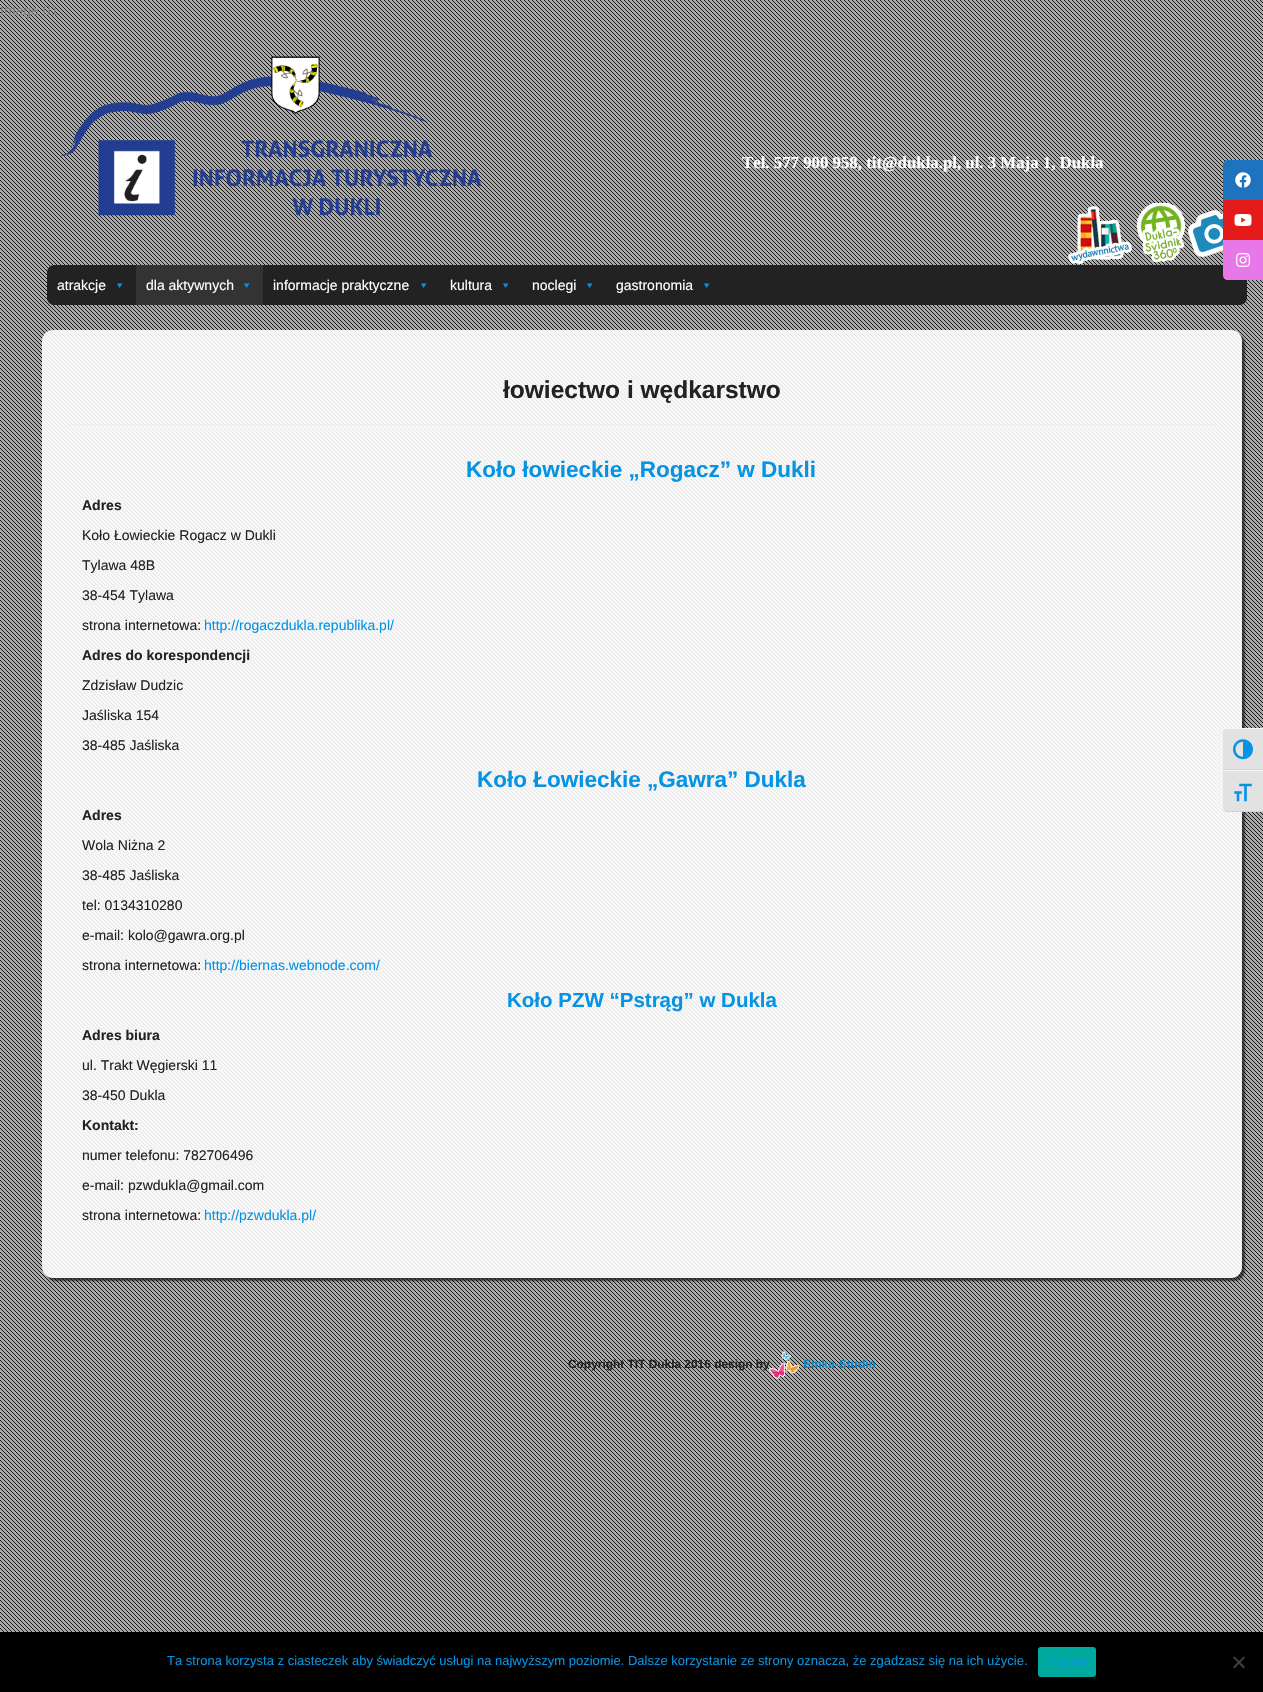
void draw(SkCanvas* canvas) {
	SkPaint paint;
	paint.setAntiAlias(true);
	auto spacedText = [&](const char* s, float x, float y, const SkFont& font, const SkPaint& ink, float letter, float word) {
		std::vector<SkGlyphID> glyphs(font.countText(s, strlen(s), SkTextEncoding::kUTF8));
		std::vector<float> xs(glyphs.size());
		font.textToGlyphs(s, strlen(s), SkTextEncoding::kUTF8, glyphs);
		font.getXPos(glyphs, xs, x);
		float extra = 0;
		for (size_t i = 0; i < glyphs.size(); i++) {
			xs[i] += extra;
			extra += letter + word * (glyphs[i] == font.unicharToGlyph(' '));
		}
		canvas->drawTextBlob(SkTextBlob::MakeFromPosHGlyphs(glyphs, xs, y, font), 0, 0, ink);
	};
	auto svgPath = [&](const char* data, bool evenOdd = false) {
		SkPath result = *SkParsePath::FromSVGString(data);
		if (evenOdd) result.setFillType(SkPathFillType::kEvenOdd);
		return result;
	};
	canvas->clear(0xffaaaaaa);
	canvas->drawImageRect(SkImages::DeferredFromEncodedData(SkData::MakeFromFileName("img1.png")), SkRect::MakeXYWH(0, 0, 1263, 1632), SkSamplingOptions());
	SkFont f1(fontMgr->matchFamilyStyle("Liberation Sans", SkFontStyle::Normal()), 14);
	f1.setSubpixel(true);
	paint.setColor(0xff808080);
	canvas->drawString("Image 01", 0, 15, f1, paint);
	canvas->drawImageRect(SkImages::DeferredFromEncodedData(SkData::MakeFromFileName("img2.png")), SkRect::MakeXYWH(61, 56, 421, 160), SkSamplingOptions());
	SkFont f2(fontMgr->matchFamilyStyle("Liberation Serif", SkFontStyle::Bold()), 16.8);
	f2.setSubpixel(true);
	paint.setColor(0xffffffff);
	canvas->drawString("Tel. 577 900 958, tit@dukla.pl, ul. 3 Maja 1, Dukla", 742, 168, f2, paint);
	canvas->drawImageRect(SkImages::DeferredFromEncodedData(SkData::MakeFromFileName("img3.png")), SkRect::MakeXYWH(1068, 206, 64, 59), SkSamplingOptions());
	canvas->drawImageRect(SkImages::DeferredFromEncodedData(SkData::MakeFromFileName("img4.png")), SkRect::MakeXYWH(1136, 203, 50, 59), SkSamplingOptions());
	canvas->drawImageRect(SkImages::DeferredFromEncodedData(SkData::MakeFromFileName("img5.png")), SkRect::MakeXYWH(1188, 210, 35, 47), SkSamplingOptions());
	paint.setColor(0xff222222);
	canvas->drawRoundRect(SkRect::MakeXYWH(47, 265, 1200, 40), 7, 7, paint);
	paint.setColor(0xffffffff);
	canvas->drawString("atrakcje", 57, 290, f1, paint);
	paint.setColor(0xff0693e3);
	canvas->drawPath(svgPath("M122.5 283.5L119.5 288L117 283.5Z"), paint);
	paint.setColor(0xff333333);
	canvas->drawRect(SkRect::MakeXYWH(136, 265, 127, 40), paint);
	paint.setColor(0xffffffff);
	canvas->drawString("dla aktywnych", 146, 290, f1, paint);
	paint.setColor(0xff0693e3);
	canvas->drawPath(svgPath("M249.5 283.5L246.5 288L244 283.5Z"), paint);
	paint.setColor(0xffffffff);
	canvas->drawString("informacje praktyczne", 273, 290, f1, paint);
	paint.setColor(0xff0693e3);
	canvas->drawPath(svgPath("M426.5 283.5L423.5 288L421 283.5Z"), paint);
	paint.setColor(0xffffffff);
	canvas->drawString("kultura", 450, 290, f1, paint);
	paint.setColor(0xff0693e3);
	canvas->drawPath(svgPath("M508.5 283.5L505.5 288L503 283.5Z"), paint);
	paint.setColor(0xffffffff);
	canvas->drawString("noclegi", 532, 290, f1, paint);
	paint.setColor(0xff0693e3);
	canvas->drawPath(svgPath("M592.5 283.5L589.5 288L587 283.5Z"), paint);
	paint.setColor(0xffffffff);
	canvas->drawString("gastronomia", 616, 290, f1, paint);
	paint.setColor(0xff0693e3);
	canvas->drawPath(svgPath("M709.5 283.5L706.5 288L704 283.5Z"), paint);
	canvas->save();
	canvas->clipPath(svgPath("M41 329H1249V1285H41ZM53 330H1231C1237 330 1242 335 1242 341V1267C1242 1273 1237 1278 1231 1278H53C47 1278 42 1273 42 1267V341C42 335 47 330 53 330Z", true), true);
	paint.setColor(0x99000000);
	paint.setMaskFilter(SkMaskFilter::MakeBlur(kNormal_SkBlurStyle, 1));
	canvas->drawRoundRect(SkRect::MakeXYWH(45, 333, 1200, 948), 11, 11, paint);
	paint.setMaskFilter(nullptr);
	canvas->restore();
	paint.setColor(0xe6ffffff);
	canvas->drawRoundRect(SkRect::MakeXYWH(42, 330, 1200, 948), 11, 11, paint);
	paint.setColor(0xffeeeeee);
	canvas->drawRect(SkRect::MakeXYWH(67, 424, 1150, 1), paint);
	SkFont f3(fontMgr->matchFamilyStyle("Liberation Sans", SkFontStyle::Bold()), 24.5);
	f3.setSubpixel(true);
	paint.setColor(0xff222222);
	canvas->drawString("łowiectwo i wędkarstwo", 503, 398, f3, paint);
	SkFont f4(fontMgr->matchFamilyStyle("Liberation Sans", SkFontStyle::Bold()), 22.5);
	f4.setSubpixel(true);
	paint.setColor(0xff0693e3);
	canvas->drawString("Koło łowieckie „Rogacz” w Dukli", 466, 477, f4, paint);
	SkFont f5(fontMgr->matchFamilyStyle("Liberation Sans", SkFontStyle::Bold()), 14);
	f5.setSubpixel(true);
	paint.setColor(0xff222222);
	canvas->drawString("Adres", 82, 510, f5, paint);
	canvas->drawString("Koło Łowieckie Rogacz w Dukli", 82, 540, f1, paint);
	canvas->drawString("Tylawa 48B", 82, 570, f1, paint);
	canvas->drawString("38-454 Tylawa", 82, 600, f1, paint);
	canvas->drawString("strona internetowa:", 82, 630, f1, paint);
	paint.setColor(0xff0693e3);
	canvas->drawString("http://rogaczdukla.republika.pl/", 204, 630, f1, paint);
	paint.setColor(0xff222222);
	canvas->drawString("Adres do korespondencji", 82, 660, f5, paint);
	canvas->drawString("Zdzisław Dudzic", 82, 690, f1, paint);
	canvas->drawString("Jaśliska 154", 82, 720, f1, paint);
	canvas->drawString("38-485 Jaśliska", 82, 750, f1, paint);
	paint.setColor(0xff0693e3);
	canvas->drawString("Koło Łowieckie „Gawra” Dukla", 477, 787, f4, paint);
	paint.setColor(0xff222222);
	canvas->drawString("Adres", 82, 820, f5, paint);
	canvas->drawString("Wola Niżna 2", 82, 850, f1, paint);
	canvas->drawString("38-485 Jaśliska", 82, 880, f1, paint);
	canvas->drawString("tel: 0134310280", 82, 910, f1, paint);
	canvas->drawString("e-mail: kolo@gawra.org.pl", 82, 940, f1, paint);
	canvas->drawString("strona internetowa:", 82, 970, f1, paint);
	paint.setColor(0xff0693e3);
	canvas->drawString("http://biernas.webnode.com/", 204, 970, f1, paint);
	SkFont f6(fontMgr->matchFamilyStyle("Liberation Sans", SkFontStyle::Bold()), 20.5);
	f6.setSubpixel(true);
	canvas->drawString("Koło PZW “Pstrąg” w Dukla", 507, 1007, f6, paint);
	paint.setColor(0xff222222);
	canvas->drawString("Adres biura", 82, 1040, f5, paint);
	canvas->drawString("ul. Trakt Węgierski 11", 82, 1070, f1, paint);
	canvas->drawString("38-450 Dukla", 82, 1100, f1, paint);
	canvas->drawString("Kontakt:", 82, 1130, f5, paint);
	canvas->drawString("numer telefonu: 782706496", 82, 1160, f1, paint);
	canvas->drawString("e-mail: pzwdukla@gmail.com", 82, 1190, f1, paint);
	canvas->drawString("strona internetowa:", 82, 1220, f1, paint);
	paint.setColor(0xff0693e3);
	canvas->drawString("http://pzwdukla.pl/", 204, 1220, f1, paint);
	SkFont f7(fontMgr->matchFamilyStyle("Liberation Sans", SkFontStyle::Bold()), 11.9);
	f7.setSubpixel(true);
	paint.setColor(0xff222222);
	canvas->drawString("Copyright TIT Dukla 2016 design by", 568, 1368, f7, paint);
	canvas->drawImageRect(SkImages::DeferredFromEncodedData(SkData::MakeFromFileName("img6.png")), SkRect::MakeXYWH(769, 1351, 30, 28), SkSamplingOptions());
	paint.setColor(0xff0088cc);
	canvas->drawString("Emka-Studio", 803, 1368, f7, paint);
	paint.setColor(0xff1e73be);
	canvas->drawPath(svgPath("M1228 160H1263V200H1223V165C1223 162 1225 160 1228 160Z"), paint);
	canvas->drawImageRect(SkImages::DeferredFromEncodedData(SkData::MakeFromFileName("img7.png")), SkRect::MakeXYWH(1235, 172, 16, 16), SkSamplingOptions());
	paint.setColor(0xffe51b1b);
	canvas->drawRect(SkRect::MakeXYWH(1223, 200, 40, 40), paint);
	canvas->drawImageRect(SkImages::DeferredFromEncodedData(SkData::MakeFromFileName("img8.png")), SkRect::MakeXYWH(1234, 214, 18, 12), SkSamplingOptions());
	paint.setColor(0xffe878e8);
	canvas->drawPath(svgPath("M1223 240H1263V280H1228C1225 280 1223 278 1223 275Z"), paint);
	canvas->drawImageRect(SkImages::DeferredFromEncodedData(SkData::MakeFromFileName("img9.png")), SkRect::MakeXYWH(1236, 253, 14, 14), SkSamplingOptions());
	paint.setColor(0xffe2e2e2);
	canvas->drawPath(svgPath("M1227 728H1263V770H1223V732C1223 730 1225 728 1227 728Z"), paint);
	paint.setColor(0xfff5f5f5);
	canvas->drawPath(svgPath("M1227 729H1263V728H1227C1225 728 1223 730 1223 732C1223 730 1225 729 1227 729Z"), paint);
	paint.setColor(0xffd2d2d2);
	canvas->drawRect(SkRect::MakeXYWH(1223, 769, 40, 1), paint);
	canvas->drawImageRect(SkImages::DeferredFromEncodedData(SkData::MakeFromFileName("img10.png")), SkRect::MakeXYWH(1233, 739, 20, 21), SkSamplingOptions());
	paint.setColor(0xffe2e2e2);
	canvas->drawPath(svgPath("M1223 770H1263V812H1227C1225 812 1223 810 1223 808Z"), paint);
	paint.setColor(0xfff5f5f5);
	canvas->drawRect(SkRect::MakeXYWH(1223, 770, 40, 1), paint);
	paint.setColor(0xffd2d2d2);
	canvas->drawPath(svgPath("M1263 812V811H1227C1225 811 1223 810 1223 808C1223 810 1225 812 1227 812Z"), paint);
	canvas->drawImageRect(SkImages::DeferredFromEncodedData(SkData::MakeFromFileName("img11.png")), SkRect::MakeXYWH(1234, 783, 18, 19), SkSamplingOptions());
	paint.setColor(0xff000000);
	canvas->drawRect(SkRect::MakeXYWH(0, 1632, 1263, 60), paint);
	SkFont f8(fontMgr->matchFamilyStyle("Liberation Sans", SkFontStyle::Normal()), 13);
	f8.setSubpixel(true);
	paint.setColor(0xff0693e3);
	canvas->drawString("Ta strona korzysta z ciasteczek aby świadczyć usługi na najwyższym poziomie. Dalsze korzystanie ze strony oznacza, że zgadzasz się na ich użycie.", 167, 1665, f8, paint);
	paint.setColor(0xff00a99d);
	canvas->drawRoundRect(SkRect::MakeXYWH(1038, 1647, 58, 30), 3, 3, paint);
	paint.setColor(0xff0693e3);
	spacedText("Zgoda", 1048, 1666, f8, paint, 0.25, 0);
	paint.setColor(0xff404040);
	canvas->drawPath(svgPath("M1243.5 1656.5L1245 1657.5L1234.5 1668.5L1233 1667Z"), paint);
	canvas->drawPath(svgPath("M1233 1657.5L1234.5 1656.5L1245 1667L1243.5 1668.5Z"), paint);
}
